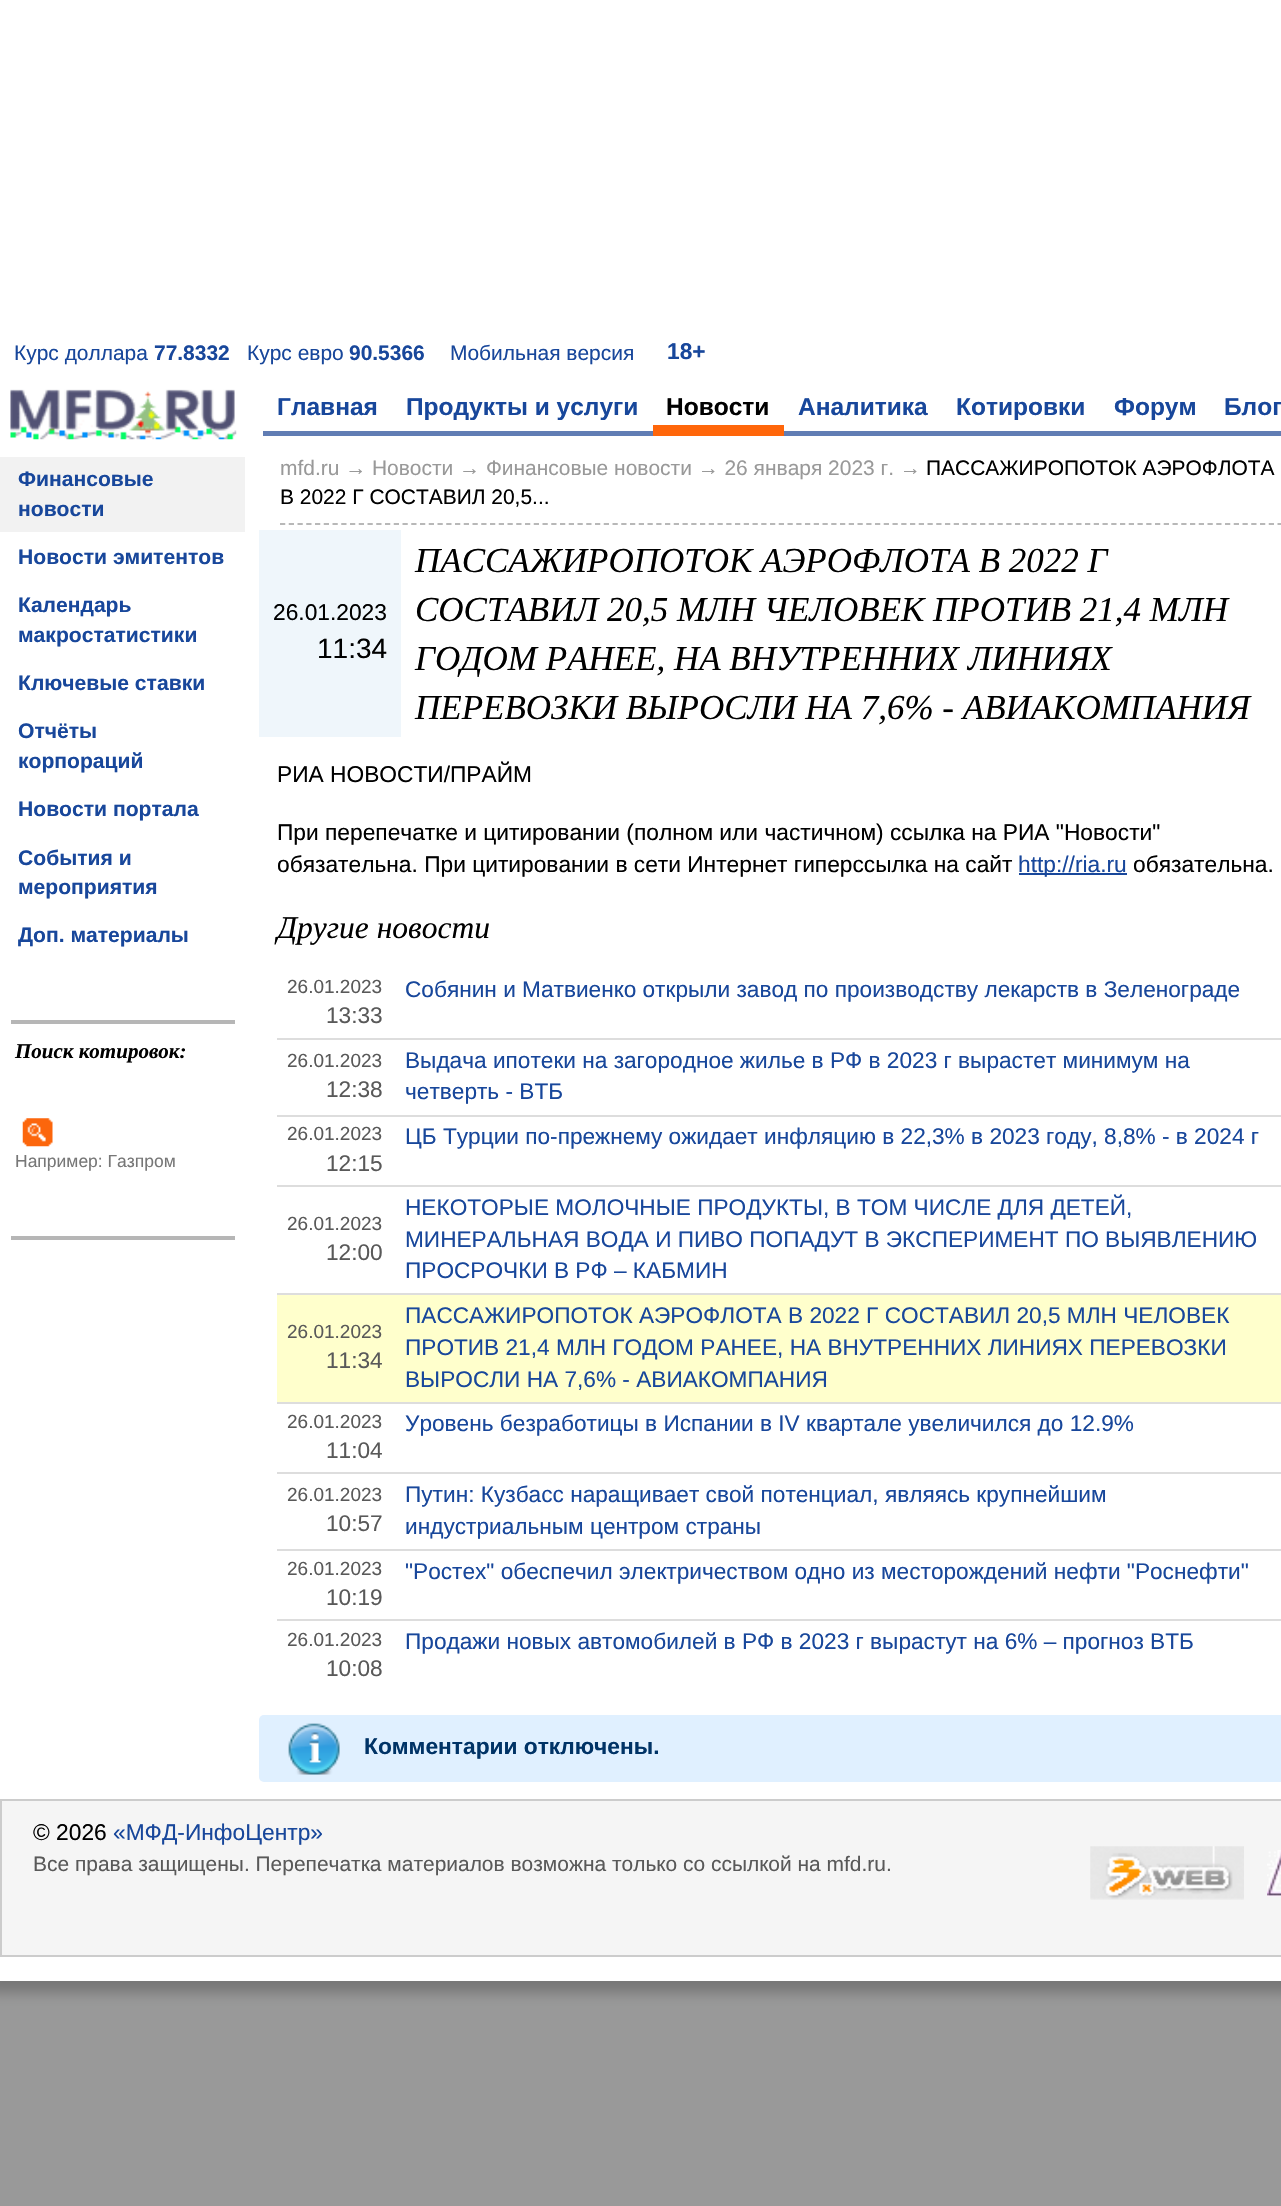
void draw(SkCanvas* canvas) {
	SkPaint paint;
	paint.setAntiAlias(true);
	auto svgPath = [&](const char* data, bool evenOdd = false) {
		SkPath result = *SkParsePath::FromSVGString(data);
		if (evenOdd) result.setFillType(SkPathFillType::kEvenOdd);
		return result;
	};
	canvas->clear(0xff999999);
	paint.setColor(0xff777777);
	paint.setMaskFilter(SkMaskFilter::MakeBlur(kNormal_SkBlurStyle, 6));
	canvas->drawRect(SkRect::MakeXYWH(-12, -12, 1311, 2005), paint);
	paint.setMaskFilter(nullptr);
	paint.setColor(0xffffffff);
	canvas->drawRect(SkRect::MakeXYWH(0, 0, 1281, 1981), paint);
	SkFont f1(fontMgr->matchFamilyStyle("Liberation Sans", SkFontStyle::Normal()), 20.95);
	f1.setSubpixel(true);
	paint.setColor(0xff18479b);
	canvas->drawString("Курс доллара", 14, 360, f1, paint);
	SkFont f2(fontMgr->matchFamilyStyle("Liberation Sans", SkFontStyle::Bold()), 20.95);
	f2.setSubpixel(true);
	canvas->drawString("77.8332", 154, 360, f2, paint);
	canvas->drawString("Курс евро", 247, 360, f1, paint);
	canvas->drawString("90.5366", 349, 360, f2, paint);
	canvas->drawString("Мобильная версия", 450, 360, f1, paint);
	SkFont f3(fontMgr->matchFamilyStyle("Liberation Sans", SkFontStyle::Bold()), 22.75);
	f3.setSubpixel(true);
	canvas->drawString("18+", 667, 359, f3, paint);
	canvas->drawImageRect(SkImages::DeferredFromEncodedData(SkData::MakeFromFileName("img1.png")), SkRect::MakeXYWH(10, 389, 227, 51), SkSamplingOptions());
	paint.setColor(0xff617db4);
	canvas->drawRect(SkRect::MakeXYWH(263, 431, 1018, 5), paint);
	SkFont f4(fontMgr->matchFamilyStyle("Liberation Sans", SkFontStyle::Bold()), 24.5);
	f4.setSubpixel(true);
	paint.setColor(0xff18479b);
	canvas->drawString("Главная", 277, 415, f4, paint);
	canvas->drawString("Продукты и услуги", 406, 415, f4, paint);
	paint.setColor(0xffff660a);
	canvas->drawRect(SkRect::MakeXYWH(653, 425, 131, 11), paint);
	paint.setColor(0xff000000);
	canvas->drawString("Новости", 666, 415, f4, paint);
	paint.setColor(0xff18479b);
	canvas->drawString("Аналитика", 798, 415, f4, paint);
	canvas->drawString("Котировки", 956, 415, f4, paint);
	canvas->drawString("Форум", 1114, 415, f4, paint);
	canvas->drawString("Блог", 1224, 415, f4, paint);
	paint.setColor(0xfff2f2f2);
	canvas->drawRect(SkRect::MakeXYWH(0, 457, 245, 75), paint);
	SkFont f5(fontMgr->matchFamilyStyle("Liberation Sans", SkFontStyle::Bold()), 21.1);
	f5.setSubpixel(true);
	paint.setColor(0xff18479b);
	canvas->drawString("Финансовые", 18, 486, f5, paint);
	canvas->drawString("новости", 18, 516, f5, paint);
	canvas->drawString("Новости эмитентов", 18, 564, f5, paint);
	canvas->drawString("Календарь", 18, 612, f5, paint);
	canvas->drawString("макростатистики", 18, 642, f5, paint);
	canvas->drawString("Ключевые ставки", 18, 690, f5, paint);
	canvas->drawString("Отчёты", 18, 738, f5, paint);
	canvas->drawString("корпораций", 18, 768, f5, paint);
	canvas->drawString("Новости портала", 18, 816, f5, paint);
	canvas->drawString("События и", 18, 865, f5, paint);
	canvas->drawString("мероприятия", 18, 894, f5, paint);
	canvas->drawString("Доп. материалы", 18, 942, f5, paint);
	paint.setColor(0xffb6b6b6);
	canvas->drawRect(SkRect::MakeXYWH(11, 1020, 224, 4), paint);
	canvas->drawRect(SkRect::MakeXYWH(11, 1236, 224, 4), paint);
	SkFont f6(fontMgr->matchFamilyStyle("Liberation Serif", SkFontStyle::BoldItalic()), 21);
	f6.setSubpixel(true);
	paint.setColor(0xff000000);
	canvas->drawString("Поиск котировок:", 15, 1058, f6, paint);
	canvas->drawImageRect(SkImages::DeferredFromEncodedData(SkData::MakeFromFileName("img2.png")), SkRect::MakeXYWH(22, 1118, 31, 29), SkSamplingOptions());
	SkFont f7(fontMgr->matchFamilyStyle("Liberation Sans", SkFontStyle::Normal()), 17.5);
	f7.setSubpixel(true);
	paint.setColor(0xff777777);
	canvas->drawString("Например: Газпром", 15, 1167, f7, paint);
	paint.setStroke(true);
	paint.setStrokeWidth(1.8);
	paint.setColor(0xffb8b8b8);
	paint.setPathEffect(SkDashPathEffect::Make({{5.25f, 3.5f}}, 0));
	canvas->drawPath(svgPath("M280 524H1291.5"), paint);
	paint.setPathEffect(nullptr);
	paint.setStroke(false);
	paint.setColor(0xff999999);
	canvas->drawString("mfd.ru → Новости → Финансовые новости → 26 января 2023 г. →", 280, 475, f1, paint);
	paint.setColor(0xff000000);
	canvas->drawString("ПАССАЖИРОПОТОК АЭРОФЛОТА", 926, 475, f1, paint);
	canvas->drawString("В 2022 Г СОСТАВИЛ 20,5...", 280, 504, f1, paint);
	paint.setColor(0xffeff6fb);
	canvas->drawRect(SkRect::MakeXYWH(259, 530, 142, 207), paint);
	SkFont f8(fontMgr->matchFamilyStyle("Liberation Sans", SkFontStyle::Normal()), 22.75);
	f8.setSubpixel(true);
	paint.setColor(0xff000000);
	canvas->drawString("26.01.2023", 273, 620, f8, paint);
	SkFont f9(fontMgr->matchFamilyStyle("Liberation Sans", SkFontStyle::Normal()), 28);
	f9.setSubpixel(true);
	canvas->drawString("11:34", 317, 658, f9, paint);
	SkFont f10(fontMgr->matchFamilyStyle("Liberation Serif", SkFontStyle::Italic()), 35);
	f10.setSubpixel(true);
	canvas->drawString("ПАССАЖИРОПОТОК АЭРОФЛОТА В 2022 Г", 415, 572, f10, paint);
	canvas->drawString("СОСТАВИЛ 20,5 МЛН ЧЕЛОВЕК ПРОТИВ 21,4 МЛН", 415, 621, f10, paint);
	canvas->drawString("ГОДОМ РАНЕЕ, НА ВНУТРЕННИХ ЛИНИЯХ", 415, 670, f10, paint);
	canvas->drawString("ПЕРЕВОЗКИ ВЫРОСЛИ НА 7,6% - АВИАКОМПАНИЯ", 415, 719, f10, paint);
	canvas->drawString("РИА НОВОСТИ/ПРАЙМ", 277, 782, f8, paint);
	canvas->drawString("При перепечатке и цитировании (полном или частичном) ссылка на РИА \"Новости\"", 277, 840, f8, paint);
	canvas->drawString("обязательна. При цитировании в сети Интернет гиперссылка на сайт", 277, 872, f8, paint);
	paint.setColor(0xff18479b);
	canvas->drawRect(SkRect::MakeXYWH(1019, 873, 108, 2), paint);
	canvas->drawString("http://ria.ru", 1018, 872, f8, paint);
	paint.setColor(0xff000000);
	canvas->drawString("обязательна.", 1133, 872, f8, paint);
	SkFont f11(fontMgr->matchFamilyStyle("Liberation Serif", SkFontStyle::Italic()), 31.5);
	f11.setSubpixel(true);
	canvas->drawString("Другие новости", 277, 938, f11, paint);
	SkFont f12(fontMgr->matchFamilyStyle("Liberation Sans", SkFontStyle::Normal()), 19);
	f12.setSubpixel(true);
	paint.setColor(0xff595959);
	canvas->drawString("26.01.2023", 287, 993, f12, paint);
	SkFont f13(fontMgr->matchFamilyStyle("Liberation Sans", SkFontStyle::Normal()), 22.65);
	f13.setSubpixel(true);
	canvas->drawString("13:33", 326, 1023, f13, paint);
	paint.setColor(0xffdddddd);
	canvas->drawRect(SkRect::MakeXYWH(277, 1038, 1004, 2), paint);
	paint.setColor(0xff18479b);
	canvas->drawString("Собянин и Матвиенко открыли завод по производству лекарств в Зеленограде", 405, 997, f13, paint);
	paint.setColor(0xff595959);
	canvas->drawString("26.01.2023", 287, 1067, f12, paint);
	canvas->drawString("12:38", 326, 1097, f13, paint);
	paint.setColor(0xffdddddd);
	canvas->drawRect(SkRect::MakeXYWH(277, 1115, 1004, 2), paint);
	paint.setColor(0xff18479b);
	canvas->drawString("Выдача ипотеки на загородное жилье в РФ в 2023 г вырастет минимум на", 405, 1068, f13, paint);
	canvas->drawString("четверть - ВТБ", 405, 1099, f13, paint);
	paint.setColor(0xff595959);
	canvas->drawString("26.01.2023", 287, 1140, f12, paint);
	canvas->drawString("12:15", 326, 1171, f13, paint);
	paint.setColor(0xffdddddd);
	canvas->drawRect(SkRect::MakeXYWH(277, 1185, 1004, 2), paint);
	paint.setColor(0xff18479b);
	canvas->drawString("ЦБ Турции по-прежнему ожидает инфляцию в 22,3% в 2023 году, 8,8% - в 2024 г", 405, 1144, f13, paint);
	paint.setColor(0xff595959);
	canvas->drawString("26.01.2023", 287, 1230, f12, paint);
	canvas->drawString("12:00", 326, 1260, f13, paint);
	paint.setColor(0xffdddddd);
	canvas->drawRect(SkRect::MakeXYWH(277, 1293, 1004, 2), paint);
	paint.setColor(0xff18479b);
	canvas->drawString("НЕКОТОРЫЕ МОЛОЧНЫЕ ПРОДУКТЫ, В ТОМ ЧИСЛЕ ДЛЯ ДЕТЕЙ,", 405, 1215, f13, paint);
	canvas->drawString("МИНЕРАЛЬНАЯ ВОДА И ПИВО ПОПАДУТ В ЭКСПЕРИМЕНТ ПО ВЫЯВЛЕНИЮ", 405, 1247, f13, paint);
	canvas->drawString("ПРОСРОЧКИ В РФ – КАБМИН", 405, 1278, f13, paint);
	paint.setColor(0xffffffcc);
	canvas->drawRect(SkRect::MakeXYWH(277, 1295, 1004, 107), paint);
	paint.setColor(0xff595959);
	canvas->drawString("26.01.2023", 287, 1338, f12, paint);
	canvas->drawString("11:34", 326, 1368, f13, paint);
	paint.setColor(0xffdddddd);
	canvas->drawRect(SkRect::MakeXYWH(277, 1402, 1004, 2), paint);
	paint.setColor(0xff18479b);
	canvas->drawString("ПАССАЖИРОПОТОК АЭРОФЛОТА В 2022 Г СОСТАВИЛ 20,5 МЛН ЧЕЛОВЕК", 405, 1323, f13, paint);
	canvas->drawString("ПРОТИВ 21,4 МЛН ГОДОМ РАНЕЕ, НА ВНУТРЕННИХ ЛИНИЯХ ПЕРЕВОЗКИ", 405, 1355, f13, paint);
	canvas->drawString("ВЫРОСЛИ НА 7,6% - АВИАКОМПАНИЯ", 405, 1387, f13, paint);
	paint.setColor(0xff595959);
	canvas->drawString("26.01.2023", 287, 1428, f12, paint);
	canvas->drawString("11:04", 326, 1458, f13, paint);
	paint.setColor(0xffdddddd);
	canvas->drawRect(SkRect::MakeXYWH(277, 1472, 1004, 2), paint);
	paint.setColor(0xff18479b);
	canvas->drawString("Уровень безработицы в Испании в IV квартале увеличился до 12.9%", 405, 1431, f13, paint);
	paint.setColor(0xff595959);
	canvas->drawString("26.01.2023", 287, 1501, f12, paint);
	canvas->drawString("10:57", 326, 1531, f13, paint);
	paint.setColor(0xffdddddd);
	canvas->drawRect(SkRect::MakeXYWH(277, 1549, 1004, 2), paint);
	paint.setColor(0xff18479b);
	canvas->drawString("Путин: Кузбасс наращивает свой потенциал, являясь крупнейшим", 405, 1502, f13, paint);
	canvas->drawString("индустриальным центром страны", 405, 1534, f13, paint);
	paint.setColor(0xff595959);
	canvas->drawString("26.01.2023", 287, 1575, f12, paint);
	canvas->drawString("10:19", 326, 1605, f13, paint);
	paint.setColor(0xffdddddd);
	canvas->drawRect(SkRect::MakeXYWH(277, 1619, 1004, 2), paint);
	paint.setColor(0xff18479b);
	canvas->drawString("\"Ростех\" обеспечил электричеством одно из месторождений нефти \"Роснефти\"", 405, 1579, f13, paint);
	paint.setColor(0xff595959);
	canvas->drawString("26.01.2023", 287, 1646, f12, paint);
	canvas->drawString("10:08", 326, 1676, f13, paint);
	paint.setColor(0xff18479b);
	canvas->drawString("Продажи новых автомобилей в РФ в 2023 г вырастут на 6% – прогноз ВТБ", 405, 1649, f13, paint);
	paint.setColor(0xffe0f0ff);
	canvas->drawRoundRect(SkRect::MakeXYWH(259, 1715, 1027, 67), 5, 5, paint);
	canvas->drawImageRect(SkImages::DeferredFromEncodedData(SkData::MakeFromFileName("img3.png")), SkRect::MakeXYWH(288, 1723, 52, 52), SkSamplingOptions());
	paint.setColor(0xff003366);
	canvas->drawString("Комментарии отключены.", 364, 1754, f3, paint);
	paint.setColor(0xfff5f5f5);
	canvas->drawRect(SkRect::MakeXYWH(1, 1800, 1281, 156), paint);
	paint.setStroke(true);
	paint.setStrokeWidth(2);
	paint.setColor(0xffcccccc);
	canvas->drawRect(SkRect::MakeXYWH(1, 1800, 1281, 156), paint);
	paint.setStroke(false);
	paint.setColor(0xff000000);
	canvas->drawString("© 2026", 33, 1840, f8, paint);
	paint.setColor(0xff18479b);
	canvas->drawString("«МФД-ИнфоЦентр»", 113, 1840, f8, paint);
	paint.setColor(0xff595959);
	canvas->drawString("Все права защищены. Перепечатка материалов возможна только со ссылкой на mfd.ru.", 33, 1871, f1, paint);
	canvas->drawImageRect(SkImages::DeferredFromEncodedData(SkData::MakeFromFileName("img4.png")), SkRect::MakeXYWH(1090, 1846, 154, 54), SkSamplingOptions());
	canvas->drawImageRect(SkImages::DeferredFromEncodedData(SkData::MakeFromFileName("img5.png")), SkRect::MakeXYWH(1267, 1850, 14, 47), SkSamplingOptions());
}
